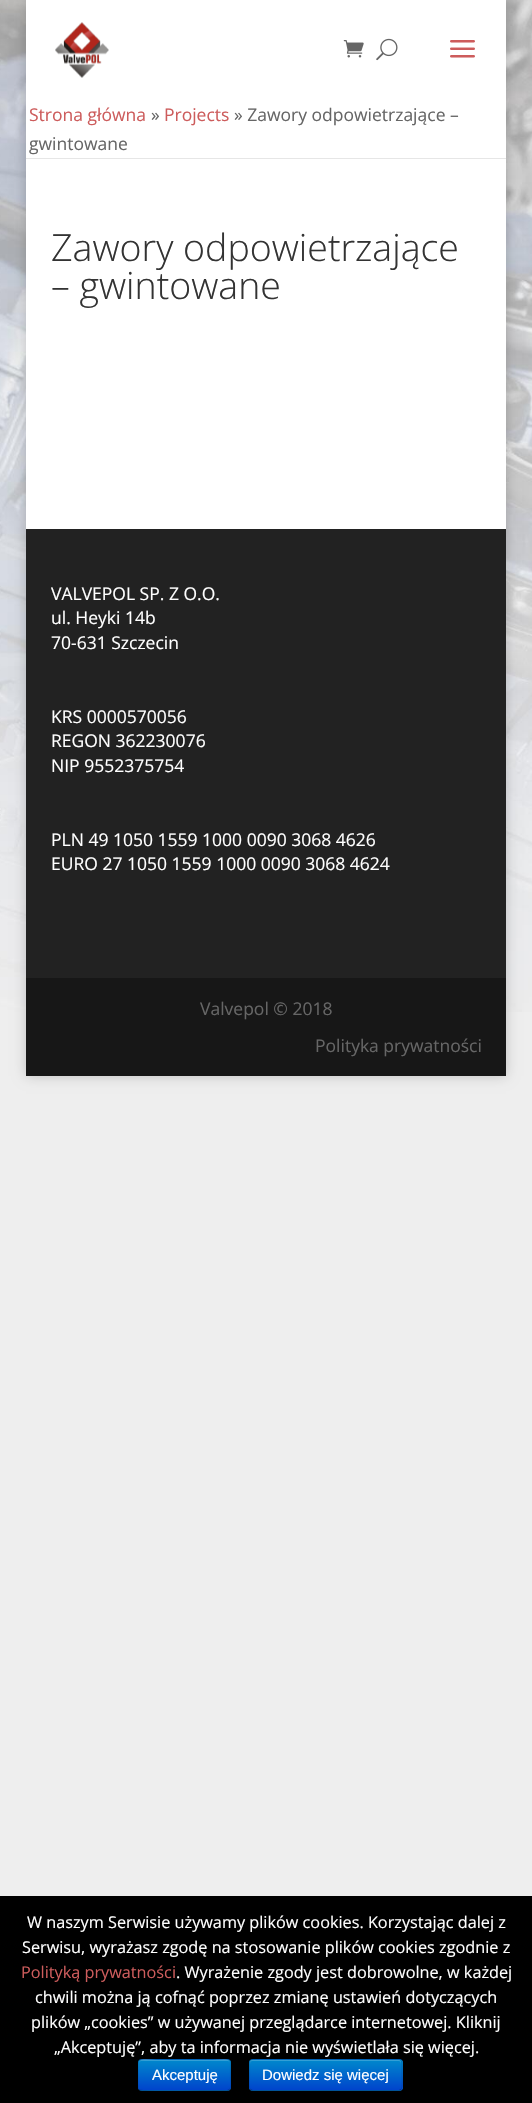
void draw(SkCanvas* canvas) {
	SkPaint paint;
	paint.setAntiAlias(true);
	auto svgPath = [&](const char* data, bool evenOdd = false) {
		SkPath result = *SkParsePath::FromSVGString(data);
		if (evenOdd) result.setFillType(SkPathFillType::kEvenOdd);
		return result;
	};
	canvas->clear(0xffeeeeee);
	canvas->drawImageRect(SkImages::DeferredFromEncodedData(SkData::MakeFromFileName("img1.png")), SkRect::MakeXYWH(0, 0, 532, 1012), SkSamplingOptions());
	paint.setColor(0x33000000);
	paint.setMaskFilter(SkMaskFilter::MakeBlur(kNormal_SkBlurStyle, 6));
	canvas->drawRect(SkRect::MakeXYWH(26, 0, 480, 1076), paint);
	paint.setMaskFilter(nullptr);
	paint.setColor(0xffe6e6e6);
	canvas->drawPath(svgPath("M26 1V159H506V158H26Z"), paint);
	paint.setColor(0xffffffff);
	canvas->drawRect(SkRect::MakeXYWH(26, 0, 480, 158), paint);
	canvas->drawImageRect(SkImages::DeferredFromEncodedData(SkData::MakeFromFileName("img2.png")), SkRect::MakeXYWH(55, 22, 54, 56), SkSamplingOptions());
	canvas->drawImageRect(SkImages::DeferredFromEncodedData(SkData::MakeFromFileName("img3.png")), SkRect::MakeXYWH(343, 40, 21, 18), SkSamplingOptions());
	canvas->drawImageRect(SkImages::DeferredFromEncodedData(SkData::MakeFromFileName("img4.png")), SkRect::MakeXYWH(376, 38, 22, 23), SkSamplingOptions());
	canvas->drawImageRect(SkImages::DeferredFromEncodedData(SkData::MakeFromFileName("img5.png")), SkRect::MakeXYWH(450, 40, 25, 18), SkSamplingOptions());
	SkFont f1(fontMgr->matchFamilyStyle("Open Sans", SkFontStyle::Normal()), 17.5);
	f1.setSubpixel(true);
	paint.setColor(0xffcd5c5c);
	canvas->drawString("Strona główna", 29, 121, f1, paint);
	paint.setColor(0xff666666);
	canvas->drawString("»", 151, 121, f1, paint);
	paint.setColor(0xffcd5c5c);
	canvas->drawString("Projects", 164, 121, f1, paint);
	paint.setColor(0xff666666);
	canvas->drawString("» Zawory odpowietrzające –", 234, 121, f1, paint);
	canvas->drawString("gwintowane", 29, 150, f1, paint);
	paint.setColor(0xffffffff);
	canvas->drawRect(SkRect::MakeXYWH(26, 159, 480, 370), paint);
	SkFont f2(fontMgr->matchFamilyStyle("Open Sans", SkFontStyle(300, SkFontStyle::kNormal_Width, SkFontStyle::kUpright_Slant)), 37.5);
	f2.setSubpixel(true);
	paint.setColor(0xff333333);
	canvas->drawString("Zawory odpowietrzające", 51, 261, f2, paint);
	canvas->drawString("– gwintowane", 51, 299, f2, paint);
	paint.setColor(0xff222222);
	canvas->drawRect(SkRect::MakeXYWH(26, 529, 480, 449), paint);
	paint.setColor(0xffffffff);
	canvas->drawString("VALVEPOL SP. Z O.O.", 51, 600, f1, paint);
	canvas->drawString("ul. Heyki 14b", 51, 624, f1, paint);
	canvas->drawString("70-631 Szczecin", 51, 649, f1, paint);
	canvas->drawString("KRS 0000570056", 51, 723, f1, paint);
	canvas->drawString("REGON 362230076", 51, 747, f1, paint);
	canvas->drawString("NIP 9552375754", 51, 772, f1, paint);
	canvas->drawString("PLN 49 1050 1559 1000 0090 3068 4626", 51, 846, f1, paint);
	canvas->drawString("EURO 27 1050 1559 1000 0090 3068 4624", 51, 870, f1, paint);
	paint.setColor(0xff171717);
	canvas->drawRect(SkRect::MakeXYWH(26, 978, 480, 98), paint);
	paint.setColor(0xff666666);
	canvas->drawString("Valvepol © 2018", 200, 1015, f1, paint);
	canvas->drawString("Polityka prywatności", 315, 1052, f1, paint);
	paint.setColor(0xff000000);
	canvas->drawRect(SkRect::MakeXYWH(0, 1896, 532, 207), paint);
	SkFont f3(fontMgr->matchFamilyStyle("Open Sans", SkFontStyle::Normal()), 16.25);
	f3.setSubpixel(true);
	paint.setColor(0xffffffff);
	canvas->drawString("W naszym Serwisie używamy plików cookies. Korzystając dalej z", 27, 1928, f3, paint);
	canvas->drawString("Serwisu, wyrażasz zgodę na stosowanie plików cookies zgodnie z", 22, 1953, f3, paint);
	paint.setColor(0xffcd5c5c);
	canvas->drawString("Polityką prywatności", 21, 1978, f3, paint);
	paint.setColor(0xffffffff);
	canvas->drawString(". Wyrażenie zgody jest dobrowolne, w każdej", 176, 1978, f3, paint);
	canvas->drawString("chwili można ją cofnąć poprzez zmianę ustawień dotyczących", 35, 2003, f3, paint);
	canvas->drawString("plików „cookies” w używanej przeglądarce internetowej. Kliknij", 31, 2028, f3, paint);
	canvas->drawString("„Akceptuję”, aby ta informacja nie wyświetlała się więcej.", 54, 2053, f3, paint);
	paint.setColor(0xff006dcc);
	canvas->drawRoundRect(SkRect::MakeXYWH(138, 2059, 93, 32), 4, 4, paint);
	canvas->save();
	canvas->clipPath(svgPath("M142 2059H227C229 2059 231 2061 231 2063V2087C231 2089 229 2091 227 2091H142C140 2091 138 2089 138 2087V2063C138 2061 140 2059 142 2059Z"), true);
	{
		const SkColor colors[] = {0xff0088cc, 0xff0044cc};
		const float stops[] = {0, 1};
		const SkPoint ends[] = {{184, 2060}, {184, 2090}};
		paint.setShader(SkGradientShader::MakeLinear(ends, colors, stops, 2, SkTileMode::kClamp));
		paint.setAlpha(255);
	}
	canvas->drawRect(SkRect::MakeXYWH(138, 2060, 93, 30), paint);
	canvas->restore();
	paint.setShader(nullptr);
	paint.setColor(0x33ffffff);
	canvas->drawPath(svgPath("M141 2061H228C229 2061 230 2062 230 2064C230 2056 219 2060 213 2060H156C150 2060 139 2056 139 2064C139 2062 140 2061 141 2061Z"), paint);
	paint.setStroke(true);
	paint.setStrokeWidth(1.2);
	paint.setColor(0x40000000);
	canvas->drawPath(svgPath("M229.5 2089.5L227.5 2090.5H213C205 2090.5 141.5 2091.5 139.5 2090L139 2089.5"), paint);
	paint.setColor(0x1a000000);
	canvas->drawPath(svgPath("M139 2089.5C137 2087.5 138 2078 138 2075C138 2056 135.5 2059.5 155.5 2059.5H227.5C231.5 2059.5 230.5 2064.5 230.5 2066.5V2079C230.5 2081.5 232 2087.5 229.5 2089.5"), paint);
	SkFont f4(fontMgr->matchFamilyStyle("Liberation Sans", SkFontStyle::Normal()), 15);
	f4.setSubpixel(true);
	paint.setStroke(false);
	paint.setColor(0xffffffff);
	canvas->drawString("Akceptuję", 152, 2080, f4, paint);
	paint.setColor(0xff006dcc);
	canvas->drawRoundRect(SkRect::MakeXYWH(249, 2059, 154, 32), 4, 4, paint);
	canvas->save();
	canvas->clipPath(svgPath("M253 2059H399C401 2059 403 2061 403 2063V2087C403 2089 401 2091 399 2091H253C251 2091 249 2089 249 2087V2063C249 2061 251 2059 253 2059Z"), true);
	{
		const SkColor colors[] = {0xff0088cc, 0xff0044cc};
		const float stops[] = {0, 1};
		const SkPoint ends[] = {{326, 2060}, {326, 2090}};
		paint.setShader(SkGradientShader::MakeLinear(ends, colors, stops, 2, SkTileMode::kClamp));
		paint.setAlpha(255);
	}
	canvas->drawRect(SkRect::MakeXYWH(249, 2060, 154, 30), paint);
	canvas->restore();
	paint.setShader(nullptr);
	paint.setColor(0xff339fd6);
	canvas->drawPath(svgPath("M252 2061H399C400 2061 401 2062 401 2064C401 2062 401 2060 399 2060H252C250 2060 250 2062 250 2064C250 2062 251 2061 252 2061Z"), paint);
	paint.setStroke(true);
	paint.setColor(0x40000000);
	canvas->drawPath(svgPath("M401 2089.5L399 2090.5H277H252.5L250.5 2089.5"), paint);
	paint.setColor(0x1a000000);
	canvas->drawPath(svgPath("M250.5 2089.5C248 2087.5 249.5 2078 249.5 2075V2066.5C249.5 2064.5 248.5 2059.5 252.5 2059.5H399C402.5 2059.5 402 2064.5 402 2066.5V2075C402 2078 403 2087.5 401 2089.5"), paint);
	paint.setStroke(false);
	paint.setColor(0xffffffff);
	canvas->drawString("Dowiedz się więcej", 262, 2080, f4, paint);
}
